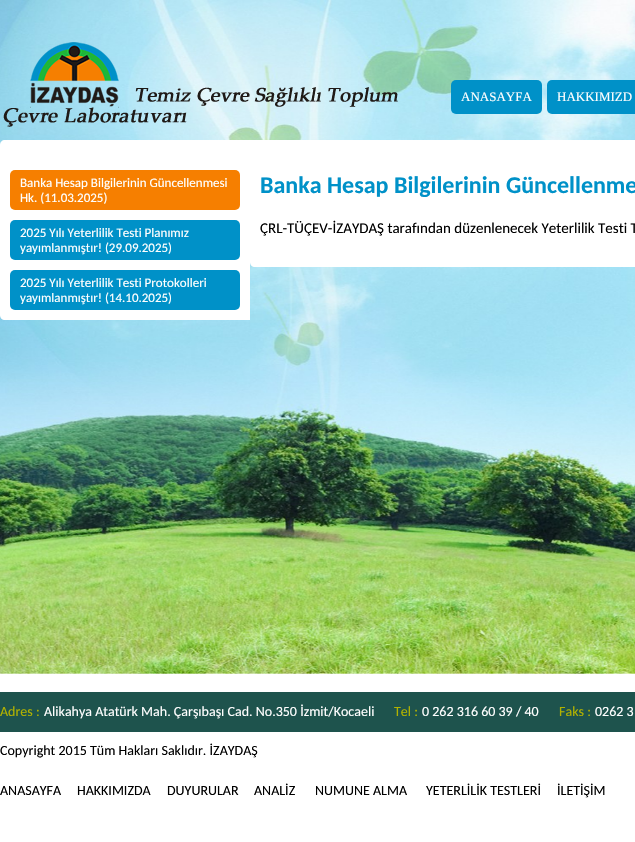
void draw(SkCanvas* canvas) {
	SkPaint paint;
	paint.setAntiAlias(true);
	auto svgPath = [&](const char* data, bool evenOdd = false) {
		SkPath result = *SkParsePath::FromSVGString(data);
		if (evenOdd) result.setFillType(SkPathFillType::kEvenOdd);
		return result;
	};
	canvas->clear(0xffffffff);
	canvas->drawImageRect(SkImages::DeferredFromEncodedData(SkData::MakeFromFileName("img1.png")), SkRect::MakeXYWH(0, 0, 635, 674), SkSamplingOptions());
	canvas->drawImageRect(SkImages::DeferredFromEncodedData(SkData::MakeFromFileName("img2.png")), SkRect::MakeXYWH(3, 42, 395, 85), SkSamplingOptions());
	paint.setColor(0xff0091c8);
	canvas->drawRoundRect(SkRect::MakeXYWH(451, 80, 91, 34), 5, 5, paint);
	SkFont f1(fontMgr->matchFamilyStyle("Liberation Serif", SkFontStyle::Normal()), 13);
	f1.setSubpixel(true);
	paint.setColor(0xffffffff);
	canvas->drawString("ANASAYFA", 461, 101, f1, paint);
	paint.setColor(0xff0091c8);
	canvas->drawRoundRect(SkRect::MakeXYWH(547, 80, 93, 34), 5, 5, paint);
	paint.setColor(0xffffffff);
	canvas->drawString("HAKKIMIZD", 557, 101, f1, paint);
	canvas->drawPath(svgPath("M5 140H250V320H5C2 320 0 318 0 315V145C0 142 2 140 5 140Z"), paint);
	paint.setColor(0xfff67f00);
	canvas->drawRoundRect(SkRect::MakeXYWH(10, 170, 230, 40), 5, 5, paint);
	SkFont f2(fontMgr->matchFamilyStyle("Carlito", SkFontStyle::Normal()), 13);
	f2.setSubpixel(true);
	paint.setColor(0xffffffff);
	canvas->drawString("Banka Hesap Bilgilerinin Güncellenmesi", 20, 187, f2, paint);
	canvas->drawString("Hk. (11.03.2025)", 20, 202, f2, paint);
	paint.setColor(0xff0091c8);
	canvas->drawRoundRect(SkRect::MakeXYWH(10, 220, 230, 40), 5, 5, paint);
	paint.setColor(0xffffffff);
	canvas->drawString("2025 Yılı Yeterlilik Testi Planımız", 20, 237, f2, paint);
	canvas->drawString("yayımlanmıştır! (29.09.2025)", 20, 252, f2, paint);
	paint.setColor(0xff0091c8);
	canvas->drawRoundRect(SkRect::MakeXYWH(10, 270, 230, 40), 5, 5, paint);
	paint.setColor(0xffffffff);
	canvas->drawString("2025 Yılı Yeterlilik Testi Protokolleri", 20, 287, f2, paint);
	canvas->drawString("yayımlanmıştır! (14.10.2025)", 20, 302, f2, paint);
	canvas->drawPath(svgPath("M250 140H635C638 140 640 142 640 145V262C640 265 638 267 635 267H255C252 267 250 265 250 262Z"), paint);
	SkFont f3(fontMgr->matchFamilyStyle("Carlito", SkFontStyle::Bold()), 24);
	f3.setSubpixel(true);
	paint.setColor(0xff0091c8);
	canvas->drawString("Banka Hesap Bilgilerinin Güncellenme", 260, 193, f3, paint);
	SkFont f4(fontMgr->matchFamilyStyle("Carlito", SkFontStyle::Normal()), 15);
	f4.setSubpixel(true);
	paint.setColor(0xff000000);
	canvas->drawString("ÇRL-TÜÇEV-İZAYDAŞ tarafından düzenlenecek Yeterlilik Testi T", 260, 233, f4, paint);
	paint.setColor(0xff1e534d);
	canvas->drawRect(SkRect::MakeXYWH(0, 692, 635, 40), paint);
	SkFont f5(fontMgr->matchFamilyStyle("Carlito", SkFontStyle::Normal()), 14);
	f5.setSubpixel(true);
	paint.setColor(0xffb2b200);
	canvas->drawString("Adres :", 0, 716, f5, paint);
	paint.setColor(0xffffffff);
	canvas->drawString("Alikahya Atatürk Mah. Çarşıbaşı Cad. No.350 İzmit/Kocaeli", 44, 716, f5, paint);
	paint.setColor(0xffb2b200);
	canvas->drawString("Tel :", 394, 716, f5, paint);
	paint.setColor(0xffffffff);
	canvas->drawString("0 262 316 60 39 / 40", 422, 716, f5, paint);
	paint.setColor(0xffb2b200);
	canvas->drawString("Faks :", 559, 716, f5, paint);
	paint.setColor(0xffffffff);
	canvas->drawString("0262 3", 595, 716, f5, paint);
	paint.setColor(0xff000000);
	canvas->drawString("Copyright 2015 Tüm Hakları Saklıdır. İZAYDAŞ", 0, 755, f5, paint);
	canvas->drawString("ANASAYFA", 0, 795, f5, paint);
	canvas->drawString("HAKKIMIZDA", 77, 795, f5, paint);
	canvas->drawString("DUYURULAR", 167, 795, f5, paint);
	canvas->drawString("ANALİZ", 254, 795, f5, paint);
	canvas->drawString("NUMUNE ALMA", 315, 795, f5, paint);
	canvas->drawString("YETERLİLİK TESTLERİ", 426, 795, f5, paint);
	canvas->drawString("İLETİŞİM", 557, 795, f5, paint);
}
